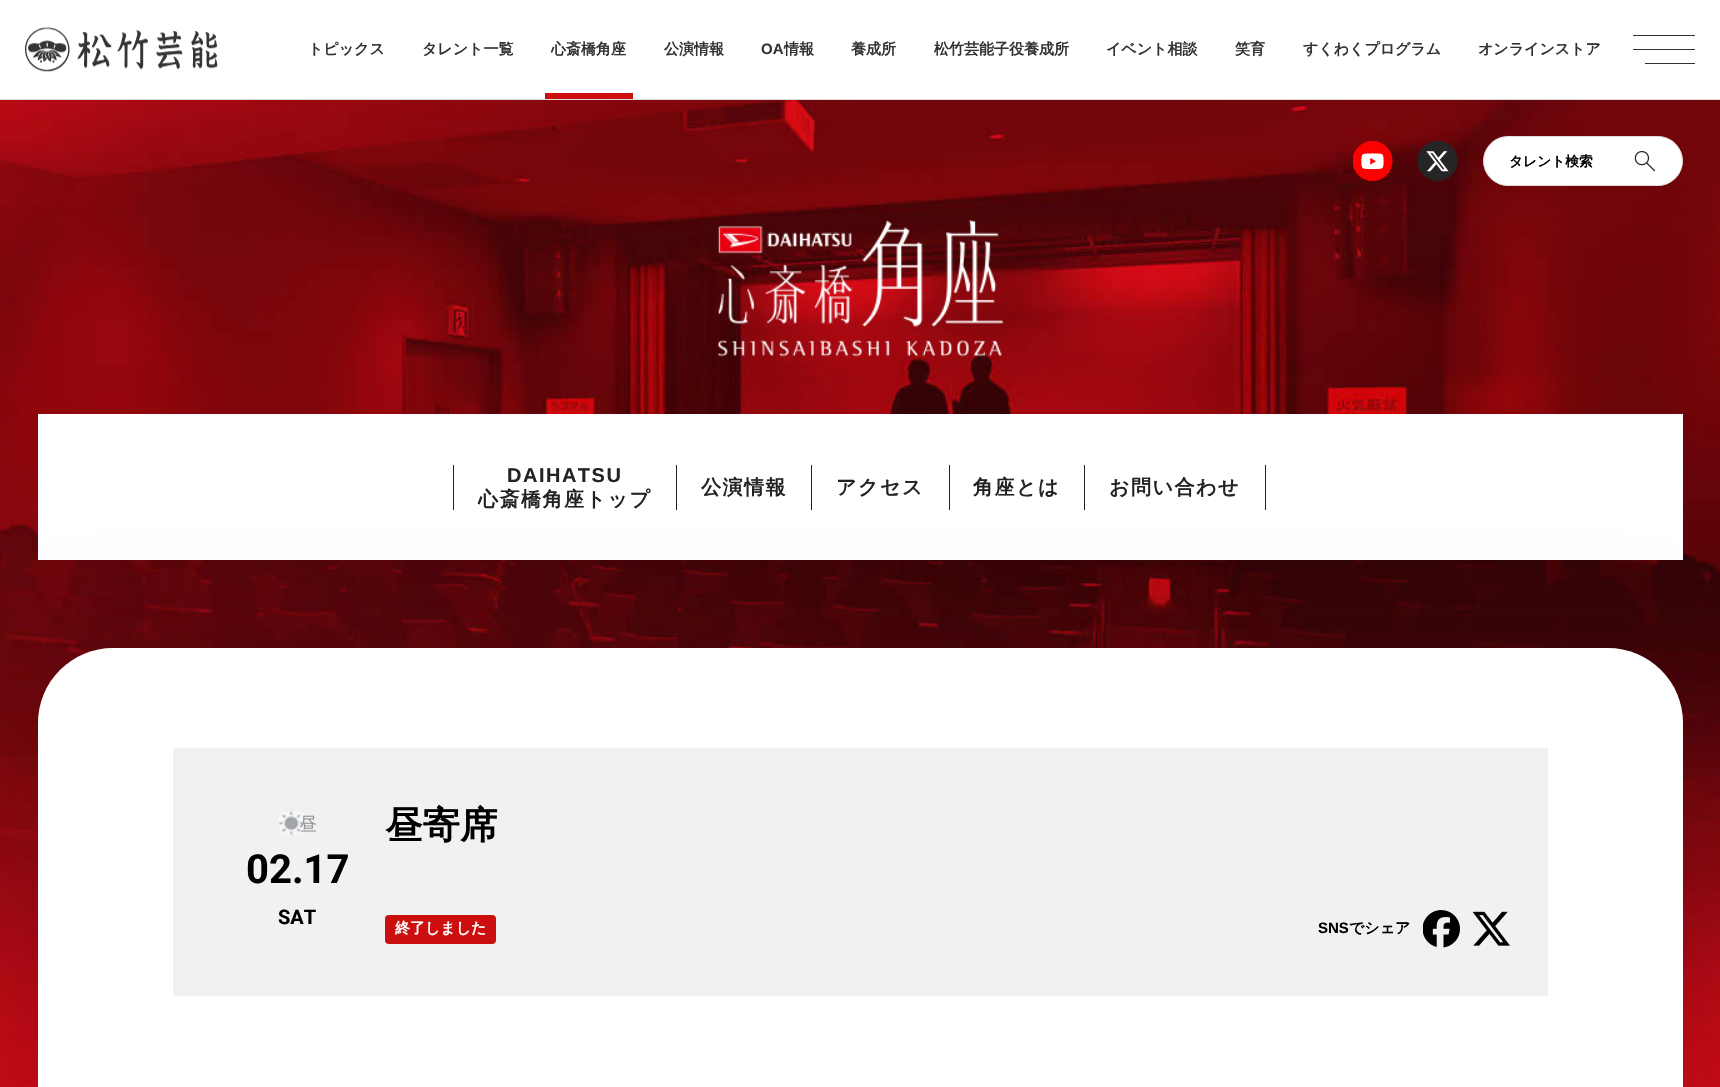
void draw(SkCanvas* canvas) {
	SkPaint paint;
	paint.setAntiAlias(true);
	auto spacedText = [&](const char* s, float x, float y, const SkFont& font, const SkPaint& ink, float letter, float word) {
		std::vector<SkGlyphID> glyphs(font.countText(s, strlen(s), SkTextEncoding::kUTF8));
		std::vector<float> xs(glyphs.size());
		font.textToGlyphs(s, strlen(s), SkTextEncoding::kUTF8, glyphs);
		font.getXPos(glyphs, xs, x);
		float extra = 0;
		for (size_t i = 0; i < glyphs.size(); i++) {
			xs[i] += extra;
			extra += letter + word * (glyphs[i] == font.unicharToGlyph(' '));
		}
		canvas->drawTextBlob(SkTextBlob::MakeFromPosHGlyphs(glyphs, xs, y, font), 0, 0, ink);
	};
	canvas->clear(0xffffffff);
	paint.setColor(0xffdddddd);
	canvas->drawRect(SkRect::MakeXYWH(0, 99, 1720, 1), paint);
	canvas->drawImageRect(SkImages::DeferredFromEncodedData(SkData::MakeFromFileName("img1.png")), SkRect::MakeXYWH(25, 27, 193, 45), SkSamplingOptions());
	SkFont f1(fontMgr->matchFamilyStyle("WenQuanYi Zen Hei", SkFontStyle::Bold()), 15);
	f1.setSubpixel(true);
	paint.setColor(0xff333333);
	canvas->drawString("トピックス", 308, 54, f1, paint);
	canvas->drawString("タレント一覧", 422, 54, f1, paint);
	canvas->drawString("心斎橋角座", 551, 54, f1, paint);
	paint.setColor(0xffcb0f0f);
	canvas->drawRect(SkRect::MakeXYWH(545, 93, 88, 6), paint);
	paint.setColor(0xff333333);
	canvas->drawString("公演情報", 664, 54, f1, paint);
	SkFont f2(fontMgr->matchFamilyStyle("Liberation Sans", SkFontStyle::Bold()), 15);
	f2.setSubpixel(true);
	canvas->drawString("OA", 761, 54, f2, paint);
	canvas->drawString("情報", 784, 54, f1, paint);
	canvas->drawString("養成所", 851, 54, f1, paint);
	canvas->drawString("松竹芸能子役養成所", 934, 54, f1, paint);
	canvas->drawString("イベント相談", 1106, 54, f1, paint);
	canvas->drawString("笑育", 1235, 54, f1, paint);
	canvas->drawString("すくわくプログラム", 1303, 54, f1, paint);
	canvas->drawString("オンラインストア", 1478, 54, f1, paint);
	canvas->drawImageRect(SkImages::DeferredFromEncodedData(SkData::MakeFromFileName("img5.png")), SkRect::MakeXYWH(0, 100, 1720, 987), SkSamplingOptions());
	canvas->drawImageRect(SkImages::DeferredFromEncodedData(SkData::MakeFromFileName("img2.png")), SkRect::MakeXYWH(1353, 141, 40, 40), SkSamplingOptions());
	canvas->drawImageRect(SkImages::DeferredFromEncodedData(SkData::MakeFromFileName("img3.png")), SkRect::MakeXYWH(1418, 141, 40, 40), SkSamplingOptions());
	paint.setColor(0xffffffff);
	canvas->drawRoundRect(SkRect::MakeXYWH(1483.5, 136.5, 199, 49), 24.5, 24.5, paint);
	paint.setStroke(true);
	paint.setStrokeWidth(1);
	paint.setColor(0xffe3ddd6);
	canvas->drawRoundRect(SkRect::MakeXYWH(1483.5, 136.5, 199, 49), 24.5, 24.5, paint);
	SkFont f3(fontMgr->matchFamilyStyle("WenQuanYi Zen Hei", SkFontStyle::Bold()), 13.75);
	f3.setSubpixel(true);
	paint.setStroke(false);
	paint.setColor(0xff000000);
	canvas->drawString("タレント検索", 1509, 166, f3, paint);
	canvas->drawImageRect(SkImages::DeferredFromEncodedData(SkData::MakeFromFileName("img4.png")), SkRect::MakeXYWH(1634, 151, 22, 21), SkSamplingOptions());
	paint.setColor(0xff333333);
	canvas->drawRect(SkRect::MakeXYWH(1633, 35, 62, 1), paint);
	canvas->drawRect(SkRect::MakeXYWH(1633, 49, 62, 1), paint);
	canvas->drawRect(SkRect::MakeXYWH(1645, 63, 50, 1), paint);
	canvas->drawImageRect(SkImages::DeferredFromEncodedData(SkData::MakeFromFileName("img6.png")), SkRect::MakeXYWH(717, 220, 287, 137), SkSamplingOptions());
	paint.setColor(0xffffffff);
	canvas->drawRect(SkRect::MakeXYWH(38, 414, 1645, 146), paint);
	paint.setColor(0xff232323);
	canvas->drawRect(SkRect::MakeXYWH(453, 465, 1, 45), paint);
	SkFont f4(fontMgr->matchFamilyStyle("Liberation Sans", SkFontStyle::Bold()), 20);
	f4.setSubpixel(true);
	spacedText("DAIHATSU", 507, 482, f4, paint, 1.5, 0);
	canvas->drawRect(SkRect::MakeXYWH(676, 465, 1, 45), paint);
	SkFont f5(fontMgr->matchFamilyStyle("WenQuanYi Zen Hei", SkFontStyle::Bold()), 20);
	f5.setSubpixel(true);
	spacedText("心斎橋角座トップ", 478, 506, f5, paint, 1.5, 0);
	spacedText("公演情報", 701, 494, f5, paint, 1.5, 0);
	canvas->drawRect(SkRect::MakeXYWH(811, 465, 1, 45), paint);
	spacedText("アクセス", 836, 494, f5, paint, 1.5, 0);
	canvas->drawRect(SkRect::MakeXYWH(949, 465, 1, 45), paint);
	spacedText("角座とは", 973, 494, f5, paint, 1.5, 0);
	canvas->drawRect(SkRect::MakeXYWH(1084, 465, 1, 45), paint);
	spacedText("お問い合わせ", 1109, 494, f5, paint, 1.5, 0);
	canvas->drawRect(SkRect::MakeXYWH(1265, 465, 1, 45), paint);
	paint.setColor(0x21000000);
	paint.setMaskFilter(SkMaskFilter::MakeBlur(kNormal_SkBlurStyle, 56));
	canvas->drawRoundRect(SkRect::MakeXYWH(38, 660, 1645, 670), 75, 75, paint);
	paint.setMaskFilter(nullptr);
	paint.setColor(0xffffffff);
	canvas->drawRoundRect(SkRect::MakeXYWH(38, 648, 1645, 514), 75, 75, paint);
	paint.setColor(0xfff1f1f1);
	canvas->drawRect(SkRect::MakeXYWH(173, 748, 1375, 248), paint);
	canvas->drawImageRect(SkImages::DeferredFromEncodedData(SkData::MakeFromFileName("img7.png")), SkRect::MakeXYWH(278, 811, 26, 24), SkSamplingOptions());
	SkFont f6(fontMgr->matchFamilyStyle("WenQuanYi Zen Hei", SkFontStyle(500, SkFontStyle::kNormal_Width, SkFontStyle::kUpright_Slant)), 18);
	f6.setSubpixel(true);
	paint.setColor(0xff969696);
	canvas->drawString("昼", 299, 830, f6, paint);
	SkFont f7(fontMgr->matchFamilyStyle("Roboto", SkFontStyle::Bold()), 40);
	f7.setSubpixel(true);
	paint.setColor(0xff000000);
	canvas->drawString("02.17", 246, 883, f7, paint);
	SkFont f8(fontMgr->matchFamilyStyle("Roboto", SkFontStyle::Bold()), 20);
	f8.setSubpixel(true);
	canvas->drawString("SAT", 278, 924, f8, paint);
	SkFont f9(fontMgr->matchFamilyStyle("WenQuanYi Zen Hei", SkFontStyle::Bold()), 37.5);
	f9.setSubpixel(true);
	canvas->drawString("昼寄席", 385, 838, f9, paint);
	paint.setColor(0xffcb0f0f);
	canvas->drawRoundRect(SkRect::MakeXYWH(385, 915, 111, 29), 4, 4, paint);
	paint.setColor(0xffffffff);
	canvas->drawString("終了しました", 395, 933, f1, paint);
	paint.setColor(0xff000000);
	canvas->drawString("SNS", 1318, 933, f2, paint);
	canvas->drawString("でシェア", 1349, 933, f1, paint);
	canvas->drawImageRect(SkImages::DeferredFromEncodedData(SkData::MakeFromFileName("img8.png")), SkRect::MakeXYWH(1423, 910, 37, 38), SkSamplingOptions());
	canvas->drawImageRect(SkImages::DeferredFromEncodedData(SkData::MakeFromFileName("img9.png")), SkRect::MakeXYWH(1473, 911, 37, 35), SkSamplingOptions());
}
